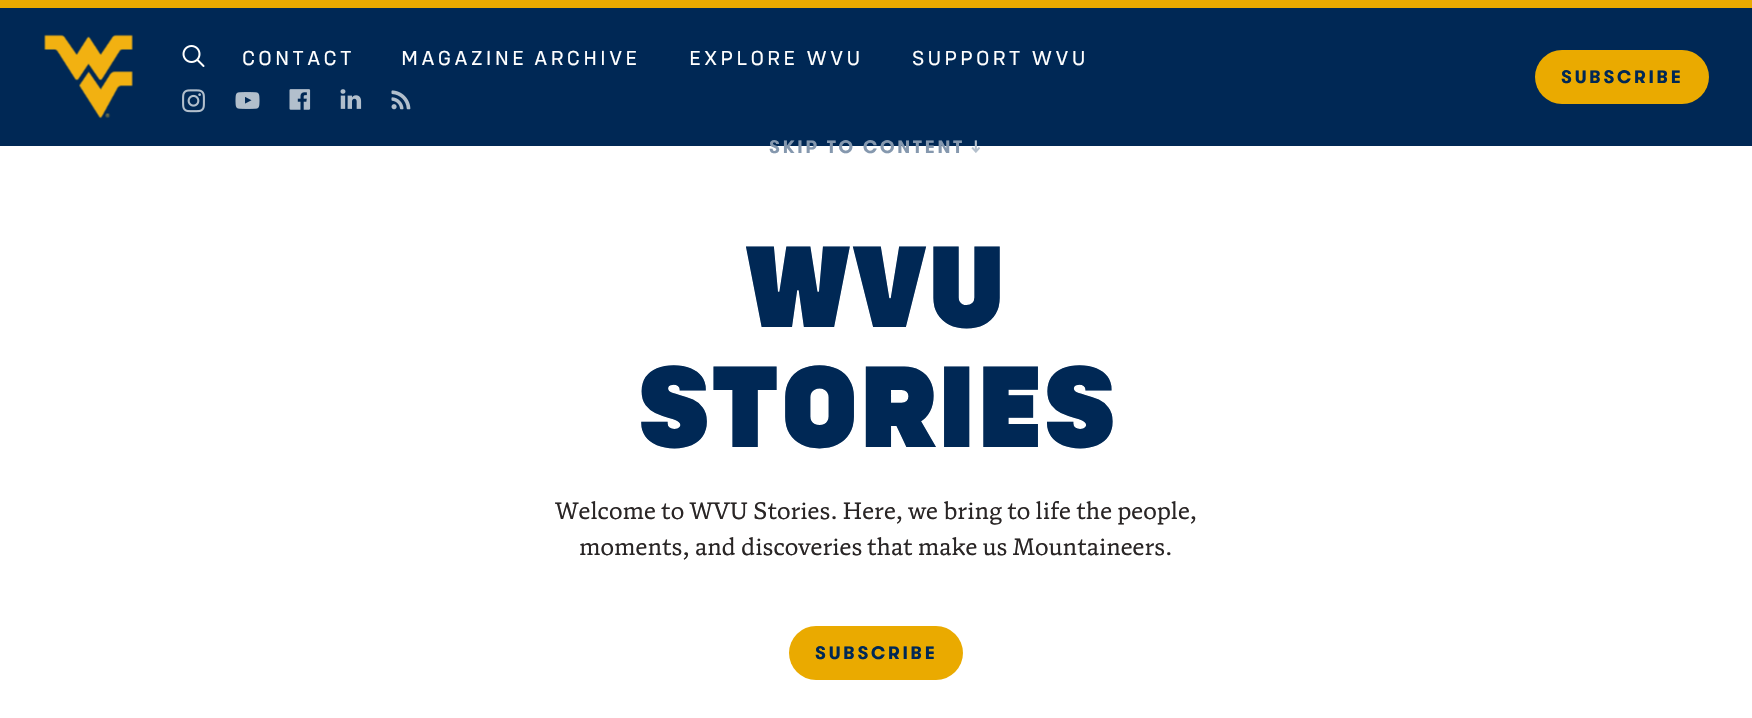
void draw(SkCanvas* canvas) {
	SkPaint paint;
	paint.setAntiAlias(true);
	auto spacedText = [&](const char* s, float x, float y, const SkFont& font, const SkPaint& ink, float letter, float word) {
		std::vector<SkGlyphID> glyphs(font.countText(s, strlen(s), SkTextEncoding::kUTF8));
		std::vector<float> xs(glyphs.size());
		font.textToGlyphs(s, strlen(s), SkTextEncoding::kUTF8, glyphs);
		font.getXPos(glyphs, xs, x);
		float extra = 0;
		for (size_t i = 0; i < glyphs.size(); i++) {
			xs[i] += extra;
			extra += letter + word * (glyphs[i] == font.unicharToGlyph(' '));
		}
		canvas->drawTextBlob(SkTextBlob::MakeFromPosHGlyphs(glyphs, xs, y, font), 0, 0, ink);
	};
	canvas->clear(0xffffffff);
	paint.setColor(0xff002855);
	canvas->drawRect(SkRect::MakeXYWH(0, 8, 1752, 138), paint);
	paint.setColor(0xffeaaa00);
	canvas->drawRect(SkRect::MakeXYWH(0, 0, 1752, 8), paint);
	canvas->drawImageRect(SkImages::DeferredFromEncodedData(SkData::MakeFromFileName("img1.png")), SkRect::MakeXYWH(44, 34, 89, 85), SkSamplingOptions());
	canvas->drawImageRect(SkImages::DeferredFromEncodedData(SkData::MakeFromFileName("img2.png")), SkRect::MakeXYWH(182, 45, 23, 22), SkSamplingOptions());
	SkFont f1(fontMgr->matchFamilyStyle("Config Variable", SkFontStyle::Normal()), 21);
	f1.setSubpixel(true);
	paint.setColor(0xffffffff);
	spacedText("CONTACT", 242, 65, f1, paint, 3.1, 0);
	spacedText("MAGAZINE ARCHIVE", 401, 65, f1, paint, 3.1, -1);
	spacedText("EXPLORE WVU", 689, 65, f1, paint, 3.1, 0);
	spacedText("SUPPORT WVU", 912, 65, f1, paint, 3.1, 0);
	canvas->drawImageRect(SkImages::DeferredFromEncodedData(SkData::MakeFromFileName("img3.png")), SkRect::MakeXYWH(182, 89, 23, 24), SkSamplingOptions());
	canvas->drawImageRect(SkImages::DeferredFromEncodedData(SkData::MakeFromFileName("img4.png")), SkRect::MakeXYWH(235, 92, 25, 17), SkSamplingOptions());
	canvas->drawImageRect(SkImages::DeferredFromEncodedData(SkData::MakeFromFileName("img5.png")), SkRect::MakeXYWH(289, 89, 22, 21), SkSamplingOptions());
	canvas->drawImageRect(SkImages::DeferredFromEncodedData(SkData::MakeFromFileName("img6.png")), SkRect::MakeXYWH(340, 89, 22, 20), SkSamplingOptions());
	canvas->drawImageRect(SkImages::DeferredFromEncodedData(SkData::MakeFromFileName("img7.png")), SkRect::MakeXYWH(391, 90, 20, 20), SkSamplingOptions());
	paint.setColor(0xffeaaa00);
	canvas->drawRoundRect(SkRect::MakeXYWH(1535, 50, 174, 54), 27, 27, paint);
	SkFont f2(fontMgr->matchFamilyStyle("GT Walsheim", SkFontStyle::Bold()), 18);
	f2.setSubpixel(true);
	paint.setColor(0xff002855);
	spacedText("SUBSCRIBE", 1561, 83, f2, paint, 2.75, 0);
	paint.setColor(0xff8598ae);
	spacedText("SKIP TO CONTENT", 769, 153, f2, paint, 2.75, 0);
	paint.setColor(0xffb4c0cd);
	spacedText("↓", 971, 153, f2, paint, 2.75, 0);
	SkFont f3(fontMgr->matchFamilyStyle("Config Variable", SkFontStyle(900, SkFontStyle::kNormal_Width, SkFontStyle::kUpright_Slant)), 120);
	f3.setSubpixel(true);
	paint.setColor(0xff002855);
	canvas->drawString("WVU", 744, 327, f3, paint);
	canvas->drawString("STORIES", 638, 447, f3, paint);
	SkFont f4(fontMgr->matchFamilyStyle("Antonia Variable", SkFontStyle::Normal()), 24);
	f4.setSubpixel(true);
	paint.setColor(0xff292525);
	spacedText("Welcome to WVU Stories. Here, we bring to life the people,", 555, 519, f4, paint, 0, -0.25);
	canvas->drawString("moments, and discoveries", 579, 555, f4, paint);
	spacedText("that make us Mountaineers.", 867, 555, f4, paint, 0, -0.5);
	paint.setColor(0xffeaaa00);
	canvas->drawRoundRect(SkRect::MakeXYWH(789, 626, 174, 54), 27, 27, paint);
	paint.setColor(0xff002855);
	spacedText("SUBSCRIBE", 815, 659, f2, paint, 2.75, 0);
}
